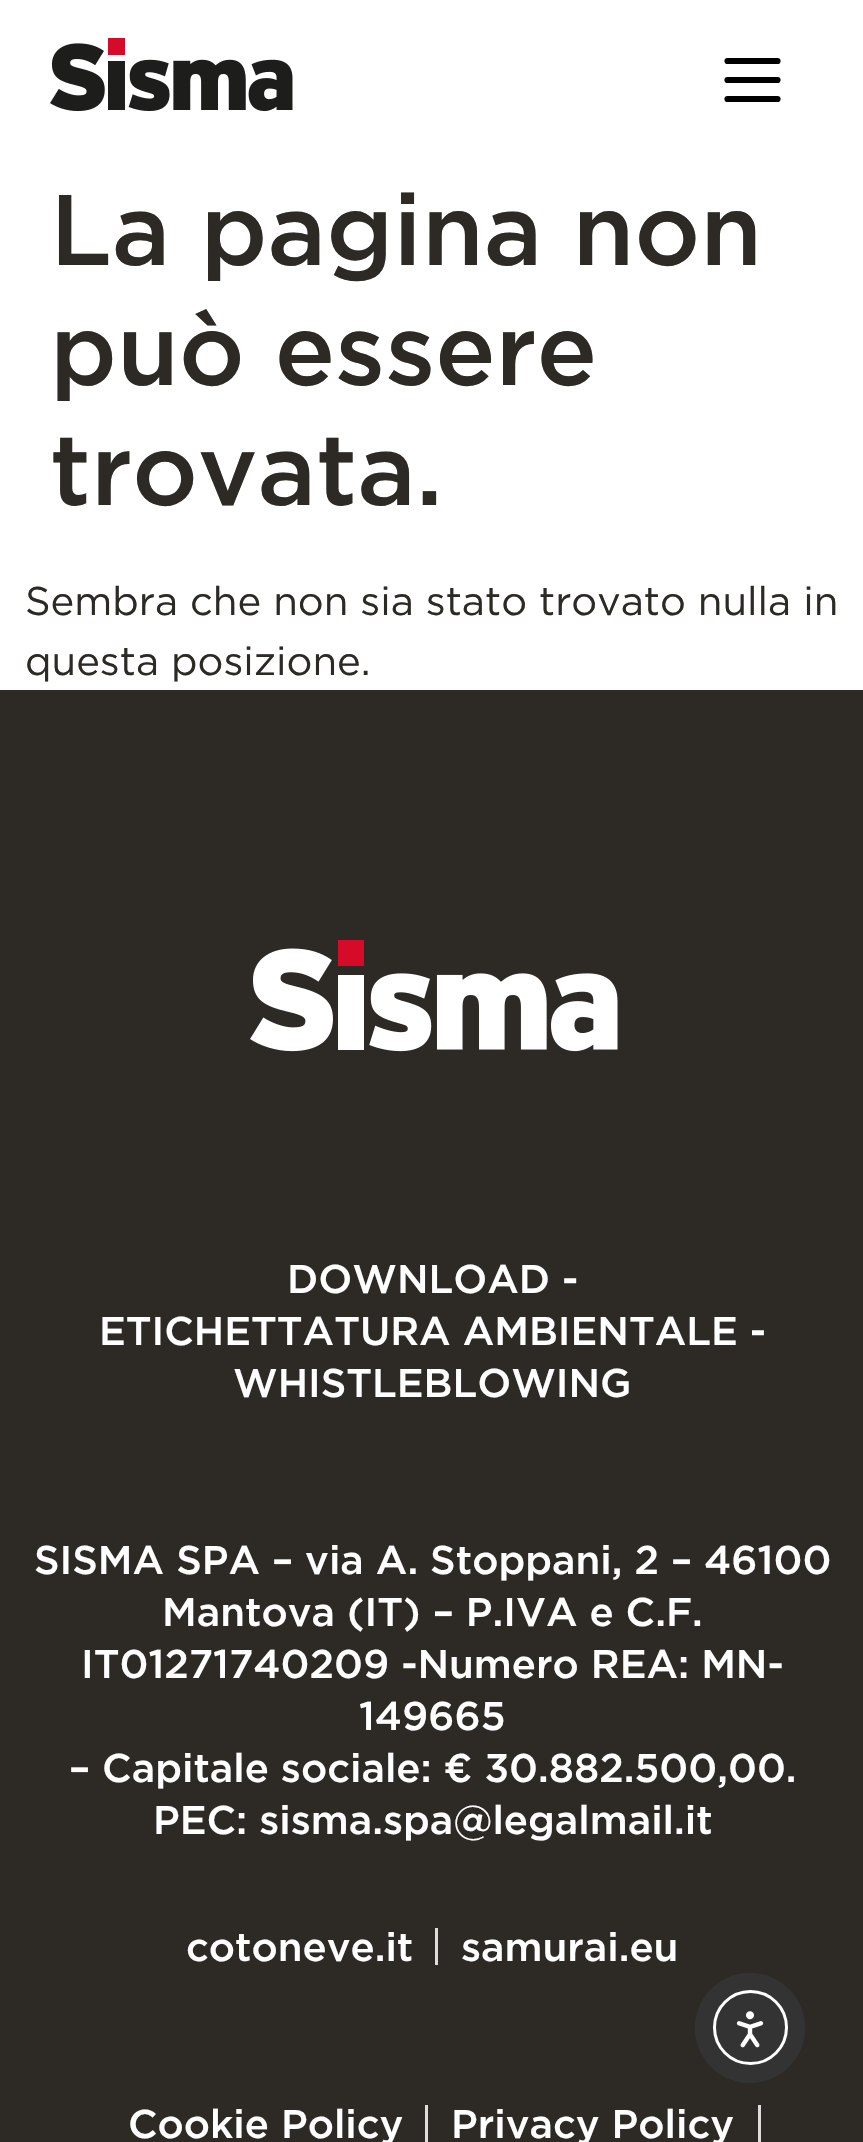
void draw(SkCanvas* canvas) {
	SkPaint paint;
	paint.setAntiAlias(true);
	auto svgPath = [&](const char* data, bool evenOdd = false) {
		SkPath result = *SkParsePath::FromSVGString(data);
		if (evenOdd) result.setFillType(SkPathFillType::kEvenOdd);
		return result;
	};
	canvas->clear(0xffffffff);
	canvas->drawImageRect(SkImages::DeferredFromEncodedData(SkData::MakeFromFileName("img1.png")), SkRect::MakeXYWH(50, 38, 243, 74), SkSamplingOptions());
	paint.setStroke(true);
	paint.setStrokeWidth(6.2);
	paint.setStrokeCap(SkPaint::kRound_Cap);
	paint.setStrokeJoin(SkPaint::kRound_Join);
	paint.setColor(0xff000000);
	canvas->drawPath(svgPath("M727.5 61H777.5M727.5 80H777.5M727.5 99H777.5"), paint);
	SkFont f1(fontMgr->matchFamilyStyle("Gotham", SkFontStyle(500, SkFontStyle::kNormal_Width, SkFontStyle::kUpright_Slant)), 100);
	f1.setSubpixel(true);
	paint.setStroke(false);
	paint.setColor(0xff2d2a26);
	canvas->drawString("La pagina non", 50, 265, f1, paint);
	canvas->drawString("può essere", 50, 385, f1, paint);
	canvas->drawString("trovata.", 50, 505, f1, paint);
	SkFont f2(fontMgr->matchFamilyStyle("Gotham", SkFontStyle::Normal()), 40);
	f2.setSubpixel(true);
	canvas->drawString("Sembra che non sia stato trovato nulla in", 25, 615, f2, paint);
	canvas->drawString("questa posizione.", 25, 675, f2, paint);
	canvas->drawRect(SkRect::MakeXYWH(0, 690, 863, 1452), paint);
	canvas->drawImageRect(SkImages::DeferredFromEncodedData(SkData::MakeFromFileName("img2.png")), SkRect::MakeXYWH(250, 940, 368, 112), SkSamplingOptions());
	SkFont f3(fontMgr->matchFamilyStyle("Gotham", SkFontStyle(500, SkFontStyle::kNormal_Width, SkFontStyle::kUpright_Slant)), 40);
	f3.setSubpixel(true);
	paint.setColor(0xffffffff);
	canvas->drawString("DOWNLOAD -", 287, 1293, f3, paint);
	canvas->drawString("ETICHETTATURA AMBIENTALE -", 99, 1345, f3, paint);
	canvas->drawString("WHISTLEBLOWING", 233, 1397, f3, paint);
	canvas->drawString("SISMA SPA – via A. Stoppani, 2 – 46100", 34, 1574, f3, paint);
	canvas->drawString("Mantova (IT) – P.IVA e C.F.", 162, 1626, f3, paint);
	canvas->drawString("IT01271740209 -Numero REA: MN-", 81, 1678, f3, paint);
	canvas->drawString("149665", 359, 1730, f3, paint);
	canvas->drawString("– Capitale sociale: € 30.882.500,00.", 69, 1782, f3, paint);
	canvas->drawString("PEC: sisma.spa@legalmail.it", 153, 1834, f3, paint);
	canvas->drawString("cotoneve.it", 186, 1961, f3, paint);
	paint.setColor(0xffdddddd);
	canvas->drawRect(SkRect::MakeXYWH(435, 1928, 3, 37), paint);
	paint.setColor(0xffffffff);
	canvas->drawString("samurai.eu", 461, 1961, f3, paint);
	canvas->drawString("Cookie Policy", 128, 2138, f3, paint);
	paint.setColor(0xffdddddd);
	canvas->drawRect(SkRect::MakeXYWH(425, 2105, 3, 37), paint);
	paint.setColor(0xffffffff);
	canvas->drawString("Privacy Policy", 451, 2138, f3, paint);
	paint.setColor(0xffdddddd);
	canvas->drawRect(SkRect::MakeXYWH(758, 2105, 3, 37), paint);
	paint.setColor(0xff333333);
	canvas->drawCircle(750, 2028, 55, paint);
	paint.setStroke(true);
	paint.setStrokeWidth(3);
	paint.setStrokeCap(SkPaint::kButt_Cap);
	paint.setStrokeJoin(SkPaint::kMiter_Join);
	paint.setColor(0xffffffff);
	canvas->drawCircle(750.5, 2027.5, 36, paint);
	canvas->drawImageRect(SkImages::DeferredFromEncodedData(SkData::MakeFromFileName("img3.png")), SkRect::MakeXYWH(736, 2011, 28, 37), SkSamplingOptions());
}
